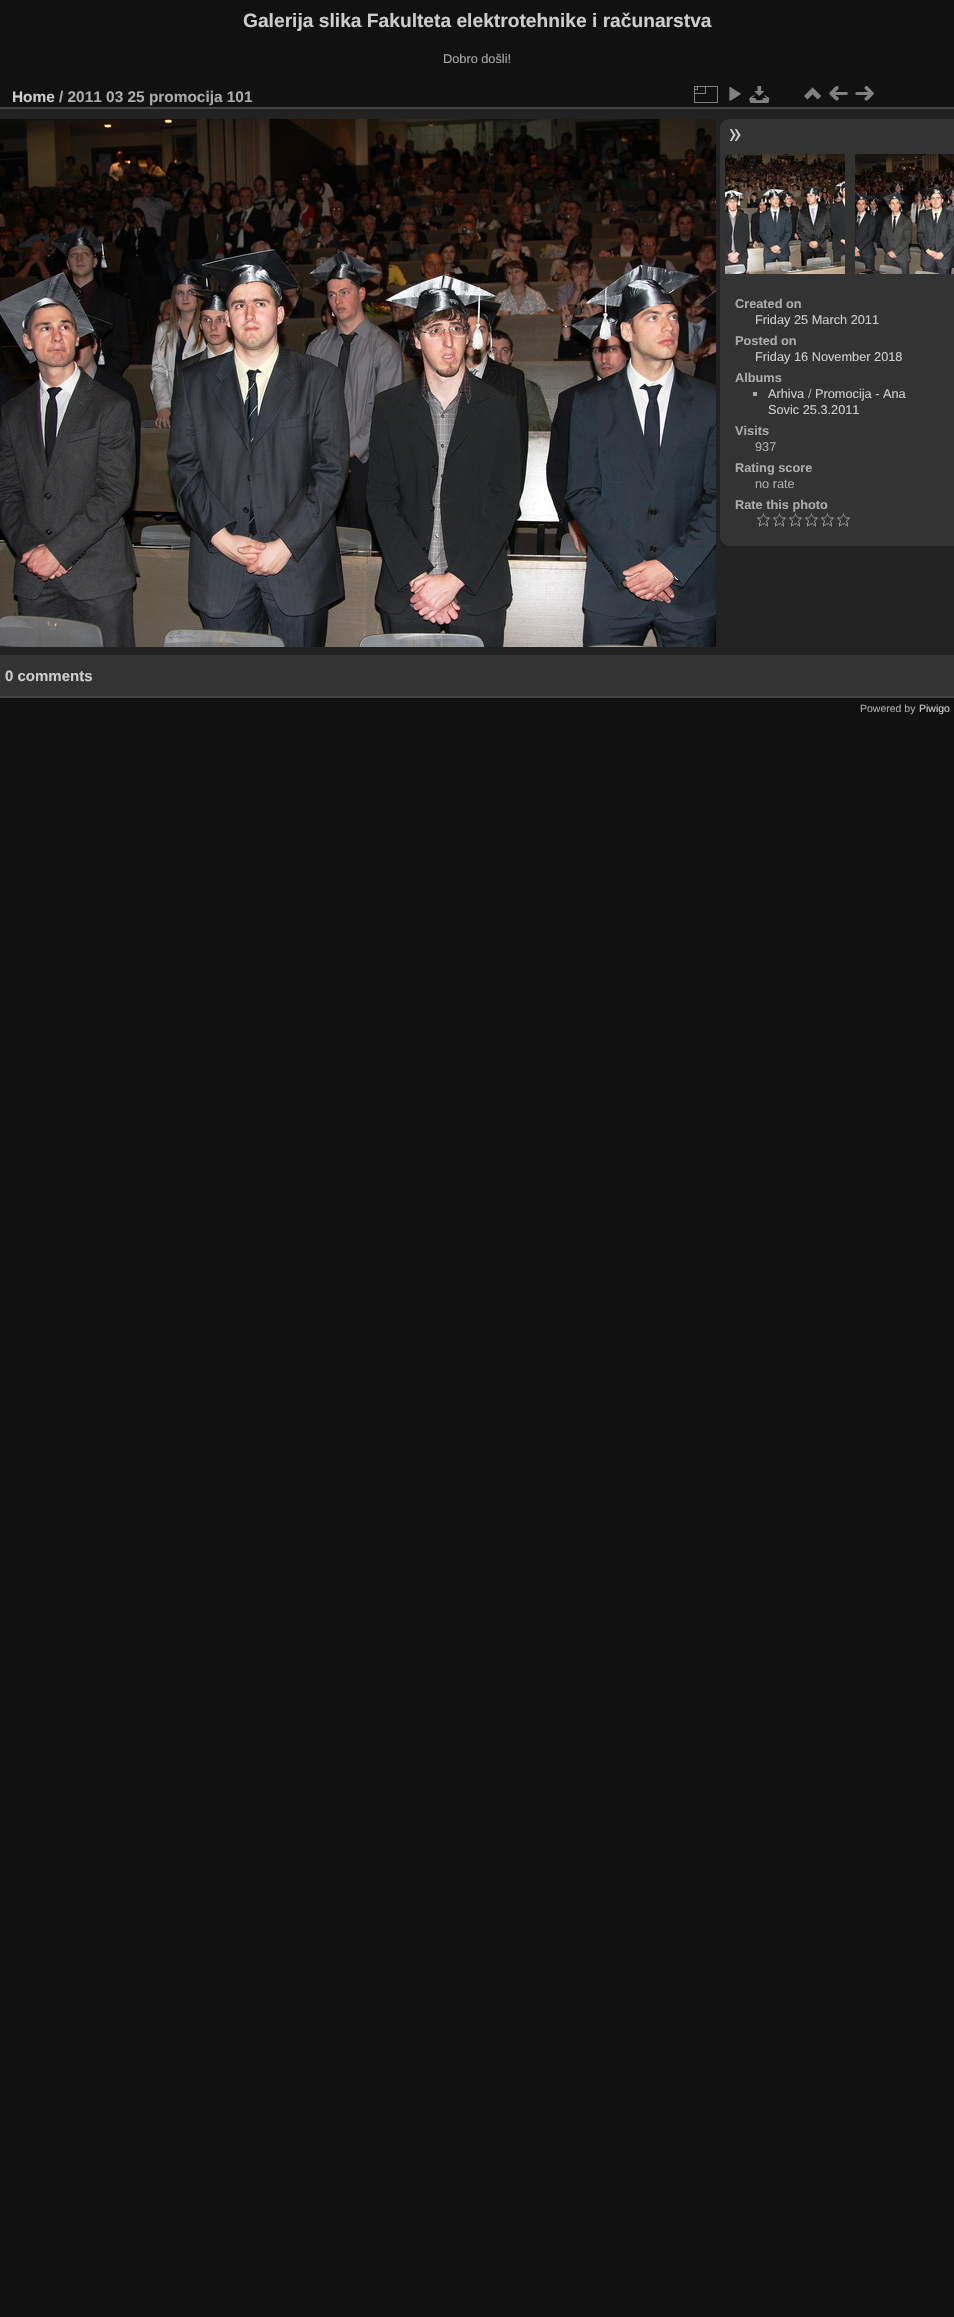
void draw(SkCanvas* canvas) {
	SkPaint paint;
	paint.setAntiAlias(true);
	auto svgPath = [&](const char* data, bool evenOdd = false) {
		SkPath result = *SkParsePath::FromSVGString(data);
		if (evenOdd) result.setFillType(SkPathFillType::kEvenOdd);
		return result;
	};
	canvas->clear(0xff111111);
	SkFont f1(fontMgr->matchFamilyStyle("Liberation Sans", SkFontStyle::Bold()), 19.2);
	f1.setSubpixel(true);
	paint.setColor(0xffcccccc);
	canvas->drawString("Galerija slika Fakulteta elektrotehnike i računarstva", 243, 27, f1, paint);
	SkFont f2(fontMgr->matchFamilyStyle("Liberation Sans", SkFontStyle::Normal()), 12.75);
	f2.setSubpixel(true);
	paint.setColor(0xffaaaaaa);
	canvas->drawString("Dobro došli!", 443, 63, f2, paint);
	paint.setColor(0xff222222);
	canvas->drawRect(SkRect::MakeXYWH(0, 109, 954, 546), paint);
	paint.setColor(0xff444444);
	canvas->drawRect(SkRect::MakeXYWH(0, 696, 954, 2), paint);
	canvas->drawRect(SkRect::MakeXYWH(0, 107, 954, 2), paint);
	SkFont f3(fontMgr->matchFamilyStyle("Liberation Sans", SkFontStyle::Bold()), 15.4);
	f3.setSubpixel(true);
	paint.setColor(0xffcccccc);
	canvas->drawString("Home", 12, 102, f3, paint);
	paint.setColor(0xffaaaaaa);
	canvas->drawString("/ 2011 03 25 promocija 101", 59, 102, f3, paint);
	canvas->drawImageRect(SkImages::DeferredFromEncodedData(SkData::MakeFromFileName("img1.png")), SkRect::MakeXYWH(694, 86, 24, 17), SkSamplingOptions());
	canvas->drawImageRect(SkImages::DeferredFromEncodedData(SkData::MakeFromFileName("img2.png")), SkRect::MakeXYWH(729, 87, 12, 14), SkSamplingOptions());
	canvas->drawImageRect(SkImages::DeferredFromEncodedData(SkData::MakeFromFileName("img3.png")), SkRect::MakeXYWH(749, 86, 21, 17), SkSamplingOptions());
	canvas->drawImageRect(SkImages::DeferredFromEncodedData(SkData::MakeFromFileName("img4.png")), SkRect::MakeXYWH(804, 87, 17, 13), SkSamplingOptions());
	canvas->drawImageRect(SkImages::DeferredFromEncodedData(SkData::MakeFromFileName("img5.png")), SkRect::MakeXYWH(829, 86, 19, 15), SkSamplingOptions());
	canvas->drawImageRect(SkImages::DeferredFromEncodedData(SkData::MakeFromFileName("img6.png")), SkRect::MakeXYWH(855, 86, 19, 15), SkSamplingOptions());
	canvas->drawImageRect(SkImages::DeferredFromEncodedData(SkData::MakeFromFileName("img7.png")), SkRect::MakeXYWH(0, 119, 716, 528), SkSamplingOptions());
	paint.setColor(0xff333333);
	canvas->drawPath(svgPath("M730 119H954V546H730C724.5 546 720 541.5 720 536V129C720 123.5 724.5 119 730 119Z"), paint);
	canvas->drawImageRect(SkImages::DeferredFromEncodedData(SkData::MakeFromFileName("img8.png")), SkRect::MakeXYWH(729, 129, 12, 12), SkSamplingOptions());
	canvas->drawImageRect(SkImages::DeferredFromEncodedData(SkData::MakeFromFileName("img9.png")), SkRect::MakeXYWH(725, 154, 120, 120), SkSamplingOptions());
	canvas->drawImageRect(SkImages::DeferredFromEncodedData(SkData::MakeFromFileName("img10.png")), SkRect::MakeXYWH(855, 154, 99, 120), SkSamplingOptions());
	SkFont f4(fontMgr->matchFamilyStyle("Liberation Sans", SkFontStyle::Bold()), 12.75);
	f4.setSubpixel(true);
	paint.setColor(0xffaaaaaa);
	canvas->drawString("Created on", 735, 308, f4, paint);
	paint.setColor(0xffcccccc);
	canvas->drawString("Friday 25 March 2011", 755, 324, f2, paint);
	paint.setColor(0xffaaaaaa);
	canvas->drawString("Posted on", 735, 345, f4, paint);
	paint.setColor(0xffcccccc);
	canvas->drawString("Friday 16 November 2018", 755, 361, f2, paint);
	paint.setColor(0xffaaaaaa);
	canvas->drawString("Albums", 735, 382, f4, paint);
	canvas->drawRect(SkRect::MakeXYWH(753, 392, 4, 4), paint);
	paint.setColor(0xffcccccc);
	canvas->drawString("Arhiva", 768, 398, f2, paint);
	paint.setColor(0xffaaaaaa);
	canvas->drawString("/", 808, 398, f2, paint);
	paint.setColor(0xffcccccc);
	canvas->drawString("Promocija - Ana", 815, 398, f2, paint);
	canvas->drawString("Sovic 25.3.2011", 768, 414, f2, paint);
	paint.setColor(0xffaaaaaa);
	canvas->drawString("Visits", 735, 435, f4, paint);
	canvas->drawString("937", 755, 451, f2, paint);
	canvas->drawString("Rating score", 735, 472, f4, paint);
	canvas->drawString("no rate", 755, 488, f2, paint);
	canvas->drawString("Rate this photo", 735, 509, f4, paint);
	canvas->drawImageRect(SkImages::DeferredFromEncodedData(SkData::MakeFromFileName("img11.png")), SkRect::MakeXYWH(757, 513, 13, 14), SkSamplingOptions());
	canvas->drawImageRect(SkImages::DeferredFromEncodedData(SkData::MakeFromFileName("img11.png")), SkRect::MakeXYWH(773, 513, 13, 14), SkSamplingOptions());
	canvas->drawImageRect(SkImages::DeferredFromEncodedData(SkData::MakeFromFileName("img11.png")), SkRect::MakeXYWH(789, 513, 13, 14), SkSamplingOptions());
	canvas->drawImageRect(SkImages::DeferredFromEncodedData(SkData::MakeFromFileName("img11.png")), SkRect::MakeXYWH(805, 513, 13, 14), SkSamplingOptions());
	canvas->drawImageRect(SkImages::DeferredFromEncodedData(SkData::MakeFromFileName("img11.png")), SkRect::MakeXYWH(821, 513, 13, 14), SkSamplingOptions());
	canvas->drawImageRect(SkImages::DeferredFromEncodedData(SkData::MakeFromFileName("img11.png")), SkRect::MakeXYWH(837, 513, 13, 14), SkSamplingOptions());
	paint.setColor(0xff333333);
	canvas->drawRect(SkRect::MakeXYWH(0, 655, 954, 41), paint);
	SkFont f5(fontMgr->matchFamilyStyle("Liberation Sans", SkFontStyle::Bold()), 15);
	f5.setSubpixel(true);
	paint.setColor(0xffcccccc);
	canvas->drawString("0 comments", 5, 681, f5, paint);
	SkFont f6(fontMgr->matchFamilyStyle("Liberation Sans", SkFontStyle::Normal()), 10.5);
	f6.setSubpixel(true);
	paint.setColor(0xffaaaaaa);
	canvas->drawString("Powered by", 860, 712, f6, paint);
	paint.setColor(0xffcccccc);
	canvas->drawString("Piwigo", 919, 712, f6, paint);
}
